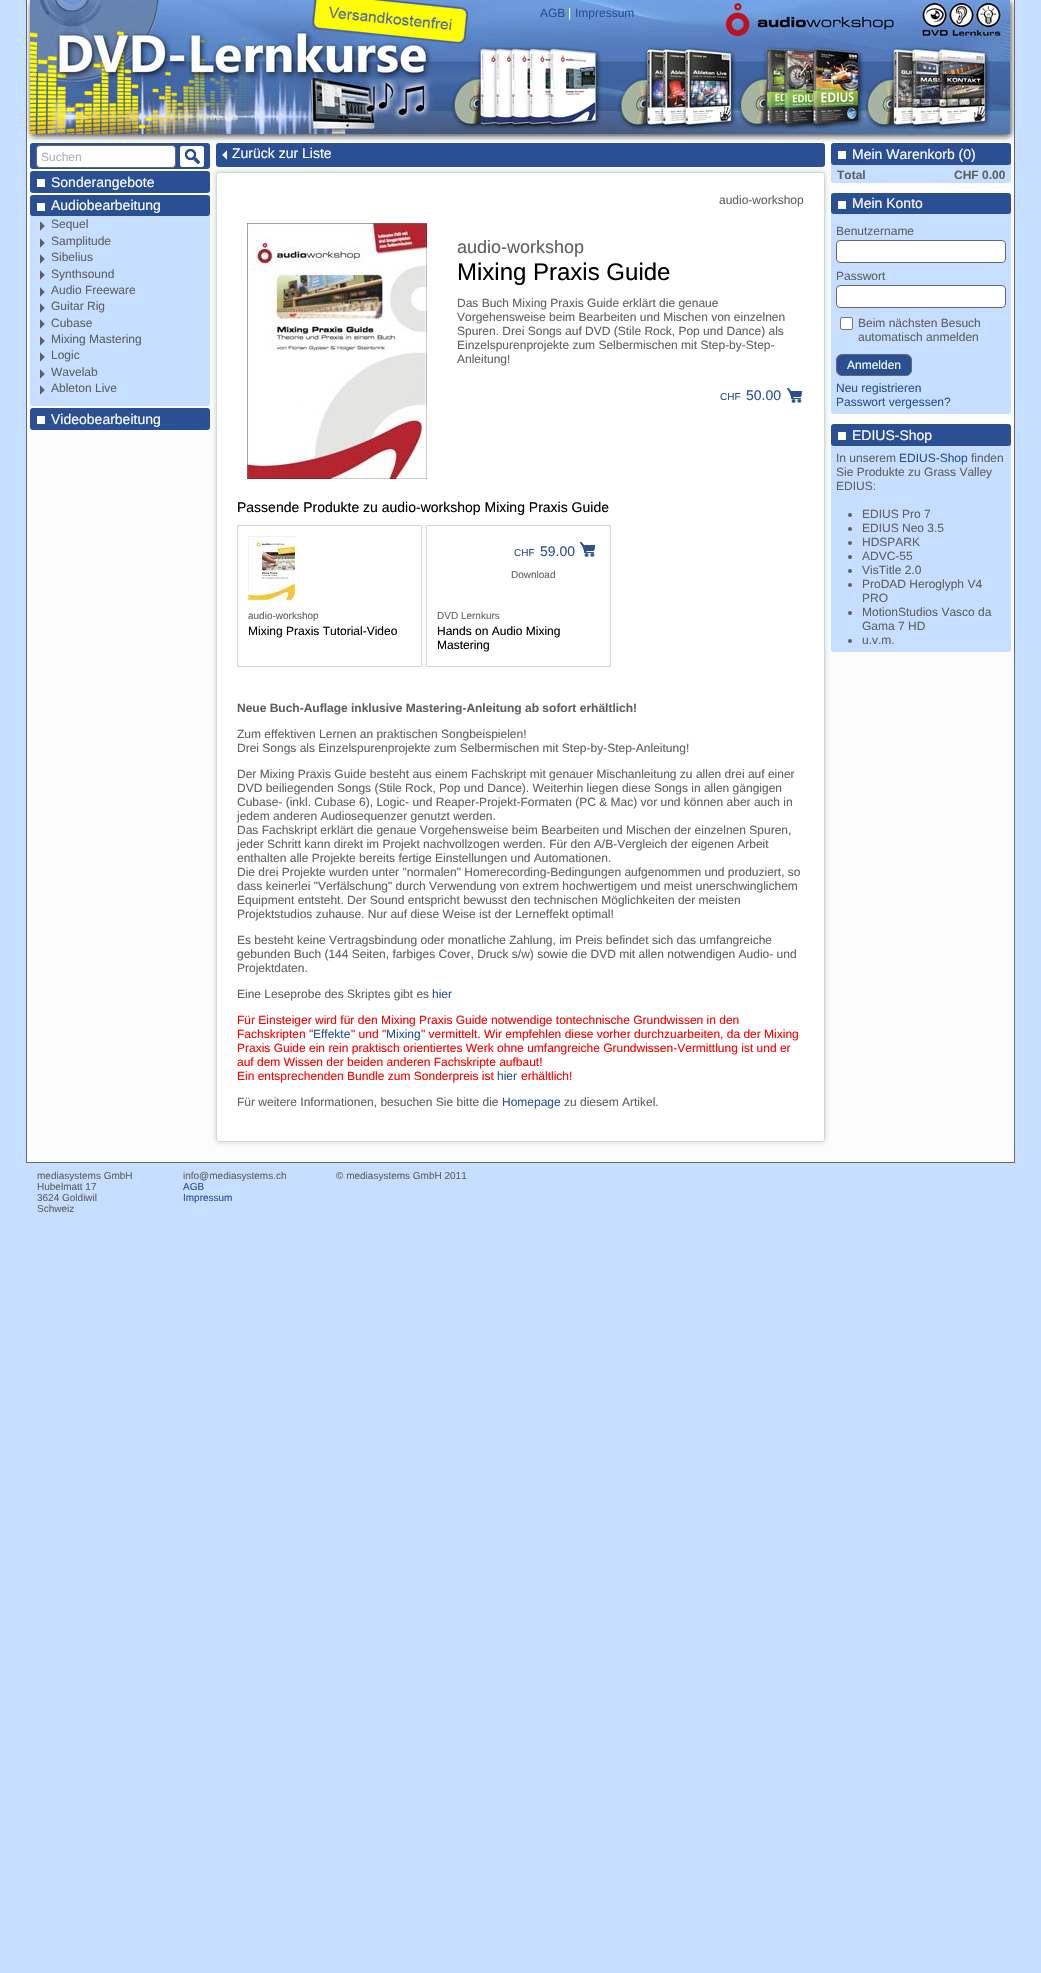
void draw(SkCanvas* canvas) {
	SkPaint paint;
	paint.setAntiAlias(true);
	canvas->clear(0xffc6deff);
	paint.setColor(0xfffcfcfc);
	canvas->drawRect(SkRect::MakeXYWH(27, 142, 987, 1020), paint);
	paint.setColor(0xff696969);
	canvas->drawRect(SkRect::MakeXYWH(1014, 0, 1, 1163), paint);
	canvas->drawRect(SkRect::MakeXYWH(26, 1162, 989, 1), paint);
	canvas->drawRect(SkRect::MakeXYWH(26, 0, 1, 1163), paint);
	canvas->drawImageRect(SkImages::DeferredFromEncodedData(SkData::MakeFromFileName("img1.png")), SkRect::MakeXYWH(27, 0, 987, 142), SkSamplingOptions());
	SkFont f1(fontMgr->matchFamilyStyle("Liberation Sans", SkFontStyle::Normal()), 12);
	f1.setSubpixel(true);
	paint.setColor(0xff2a5093);
	canvas->drawString("AGB", 540, 17, f1, paint);
	paint.setColor(0xffffffff);
	canvas->drawString("|", 568, 17, f1, paint);
	paint.setColor(0xff2a5093);
	canvas->drawString("Impressum", 575, 17, f1, paint);
	canvas->drawRoundRect(SkRect::MakeXYWH(30, 143, 180, 26), 3, 3, paint);
	paint.setColor(0xffffffff);
	canvas->drawRoundRect(SkRect::MakeXYWH(36.5, 145.5, 139, 22), 3.5, 3.5, paint);
	paint.setStroke(true);
	paint.setStrokeWidth(1);
	paint.setColor(0xff696969);
	canvas->drawRoundRect(SkRect::MakeXYWH(36.5, 145.5, 139, 22), 3.5, 3.5, paint);
	paint.setStroke(false);
	paint.setColor(0xffb0b0b0);
	canvas->drawString("Suchen", 41, 161, f1, paint);
	canvas->drawImageRect(SkImages::DeferredFromEncodedData(SkData::MakeFromFileName("img2.png")), SkRect::MakeXYWH(180, 146, 24, 21), SkSamplingOptions());
	paint.setColor(0xff2a5093);
	canvas->drawRoundRect(SkRect::MakeXYWH(30, 171, 180, 22), 3, 3, paint);
	paint.setColor(0xffffffff);
	canvas->drawRect(SkRect::MakeXYWH(37, 179, 8, 8), paint);
	SkFont f2(fontMgr->matchFamilyStyle("Liberation Sans", SkFontStyle::Normal()), 14);
	f2.setSubpixel(true);
	canvas->drawString("Sonderangebote", 51, 187, f2, paint);
	paint.setColor(0xffc6deff);
	canvas->drawRoundRect(SkRect::MakeXYWH(30, 195, 180, 211), 3, 3, paint);
	paint.setColor(0xff2a5093);
	canvas->drawRoundRect(SkRect::MakeXYWH(30, 195, 180, 21), 3, 3, paint);
	paint.setColor(0xffffffff);
	canvas->drawRect(SkRect::MakeXYWH(37, 203, 8, 8), paint);
	canvas->drawString("Audiobearbeitung", 51, 210, f2, paint);
	canvas->drawImageRect(SkImages::DeferredFromEncodedData(SkData::MakeFromFileName("img3.png")), SkRect::MakeXYWH(40, 221, 5, 10), SkSamplingOptions());
	paint.setColor(0xff606060);
	canvas->drawString("Sequel", 51, 228, f1, paint);
	canvas->drawImageRect(SkImages::DeferredFromEncodedData(SkData::MakeFromFileName("img3.png")), SkRect::MakeXYWH(40, 238, 5, 10), SkSamplingOptions());
	canvas->drawString("Samplitude", 51, 245, f1, paint);
	canvas->drawImageRect(SkImages::DeferredFromEncodedData(SkData::MakeFromFileName("img3.png")), SkRect::MakeXYWH(40, 254, 5, 10), SkSamplingOptions());
	canvas->drawString("Sibelius", 51, 261, f1, paint);
	canvas->drawImageRect(SkImages::DeferredFromEncodedData(SkData::MakeFromFileName("img3.png")), SkRect::MakeXYWH(40, 270, 5, 10), SkSamplingOptions());
	canvas->drawString("Synthsound", 51, 278, f1, paint);
	canvas->drawImageRect(SkImages::DeferredFromEncodedData(SkData::MakeFromFileName("img3.png")), SkRect::MakeXYWH(40, 287, 5, 10), SkSamplingOptions());
	canvas->drawString("Audio Freeware", 51, 294, f1, paint);
	canvas->drawImageRect(SkImages::DeferredFromEncodedData(SkData::MakeFromFileName("img3.png")), SkRect::MakeXYWH(40, 303, 5, 10), SkSamplingOptions());
	canvas->drawString("Guitar Rig", 51, 310, f1, paint);
	canvas->drawImageRect(SkImages::DeferredFromEncodedData(SkData::MakeFromFileName("img3.png")), SkRect::MakeXYWH(40, 319, 5, 10), SkSamplingOptions());
	canvas->drawString("Cubase", 51, 327, f1, paint);
	canvas->drawImageRect(SkImages::DeferredFromEncodedData(SkData::MakeFromFileName("img3.png")), SkRect::MakeXYWH(40, 336, 5, 10), SkSamplingOptions());
	canvas->drawString("Mixing Mastering", 51, 343, f1, paint);
	canvas->drawImageRect(SkImages::DeferredFromEncodedData(SkData::MakeFromFileName("img3.png")), SkRect::MakeXYWH(40, 352, 5, 10), SkSamplingOptions());
	canvas->drawString("Logic", 51, 359, f1, paint);
	canvas->drawImageRect(SkImages::DeferredFromEncodedData(SkData::MakeFromFileName("img3.png")), SkRect::MakeXYWH(40, 369, 5, 10), SkSamplingOptions());
	canvas->drawString("Wavelab", 51, 376, f1, paint);
	canvas->drawImageRect(SkImages::DeferredFromEncodedData(SkData::MakeFromFileName("img3.png")), SkRect::MakeXYWH(40, 385, 5, 10), SkSamplingOptions());
	canvas->drawString("Ableton Live", 51, 392, f1, paint);
	paint.setColor(0xff2a5093);
	canvas->drawRoundRect(SkRect::MakeXYWH(30, 408, 180, 22), 3, 3, paint);
	paint.setColor(0xffffffff);
	canvas->drawRect(SkRect::MakeXYWH(37, 416, 8, 8), paint);
	canvas->drawString("Videobearbeitung", 51, 424, f2, paint);
	paint.setColor(0xff2a5093);
	canvas->drawRoundRect(SkRect::MakeXYWH(216, 143, 609, 24), 3, 3, paint);
	canvas->drawImageRect(SkImages::DeferredFromEncodedData(SkData::MakeFromFileName("img4.png")), SkRect::MakeXYWH(222, 150, 5, 10), SkSamplingOptions());
	paint.setColor(0xffffffff);
	canvas->drawString("Zurück zur Liste", 232, 158, f2, paint);
	paint.setColor(0xffc5d1d5);
	paint.setMaskFilter(SkMaskFilter::MakeBlur(kNormal_SkBlurStyle, 2.5));
	canvas->drawRoundRect(SkRect::MakeXYWH(216, 172, 609, 970), 3, 3, paint);
	paint.setMaskFilter(nullptr);
	paint.setColor(0xffffffff);
	canvas->drawRoundRect(SkRect::MakeXYWH(216.5, 172.5, 608, 969), 2.5, 2.5, paint);
	paint.setStroke(true);
	paint.setColor(0xffd6d6d6);
	canvas->drawRoundRect(SkRect::MakeXYWH(216.5, 172.5, 608, 969), 2.5, 2.5, paint);
	canvas->drawImageRect(SkImages::DeferredFromEncodedData(SkData::MakeFromFileName("img5.png")), SkRect::MakeXYWH(247, 223, 180, 256), SkSamplingOptions());
	paint.setStroke(false);
	paint.setColor(0xff606060);
	canvas->drawString("audio-workshop", 719, 204, f1, paint);
	SkFont f3(fontMgr->matchFamilyStyle("Liberation Sans", SkFontStyle::Normal()), 18);
	f3.setSubpixel(true);
	canvas->drawString("audio-workshop", 457, 253, f3, paint);
	SkFont f4(fontMgr->matchFamilyStyle("Liberation Sans", SkFontStyle::Normal()), 24);
	f4.setSubpixel(true);
	paint.setColor(0xff000000);
	canvas->drawString("Mixing Praxis Guide", 457, 280, f4, paint);
	paint.setColor(0xff606060);
	canvas->drawString("Das Buch Mixing Praxis Guide erklärt die genaue", 457, 307, f1, paint);
	canvas->drawString("Vorgehensweise beim Bearbeiten und Mischen von einzelnen", 457, 321, f1, paint);
	canvas->drawString("Spuren. Drei Songs auf DVD (Stile Rock, Pop und Dance) als", 457, 335, f1, paint);
	canvas->drawString("Einzelspurenprojekte zum Selbermischen mit Step-by-Step-", 457, 349, f1, paint);
	canvas->drawString("Anleitung!", 457, 363, f1, paint);
	SkFont f5(fontMgr->matchFamilyStyle("Liberation Sans", SkFontStyle::Normal()), 10);
	f5.setSubpixel(true);
	paint.setColor(0xff2a5093);
	canvas->drawString("CHF", 720, 400, f5, paint);
	canvas->drawString("50.00", 746, 400, f2, paint);
	canvas->drawImageRect(SkImages::DeferredFromEncodedData(SkData::MakeFromFileName("img6.png")), SkRect::MakeXYWH(787, 388, 15, 15), SkSamplingOptions());
	paint.setColor(0xff000000);
	canvas->drawString("Passende Produkte zu audio-workshop Mixing Praxis Guide", 237, 512, f2, paint);
	paint.setStroke(true);
	paint.setColor(0xffd6d6d6);
	canvas->drawRect(SkRect::MakeXYWH(237.5, 525.5, 184, 141), paint);
	canvas->drawImageRect(SkImages::DeferredFromEncodedData(SkData::MakeFromFileName("img7.png")), SkRect::MakeXYWH(248, 536, 47, 64), SkSamplingOptions());
	paint.setStroke(false);
	paint.setColor(0xff606060);
	canvas->drawString("audio-workshop", 248, 619, f5, paint);
	paint.setColor(0xff000000);
	canvas->drawString("Mixing Praxis Tutorial-Video", 248, 635, f1, paint);
	paint.setStroke(true);
	paint.setColor(0xffd6d6d6);
	canvas->drawRect(SkRect::MakeXYWH(426.5, 525.5, 184, 141), paint);
	paint.setStroke(false);
	paint.setColor(0xff2a5093);
	canvas->drawString("CHF", 514, 556, f5, paint);
	canvas->drawString("59.00", 540, 556, f2, paint);
	canvas->drawImageRect(SkImages::DeferredFromEncodedData(SkData::MakeFromFileName("img6.png")), SkRect::MakeXYWH(580, 542, 15, 15), SkSamplingOptions());
	paint.setColor(0xff606060);
	canvas->drawString("Download", 511, 578, f5, paint);
	canvas->drawString("DVD Lernkurs", 437, 619, f5, paint);
	paint.setColor(0xff000000);
	canvas->drawString("Hands on Audio Mixing", 437, 635, f1, paint);
	canvas->drawString("Mastering", 437, 649, f1, paint);
	SkFont f6(fontMgr->matchFamilyStyle("Liberation Sans", SkFontStyle::Bold()), 12);
	f6.setSubpixel(true);
	paint.setColor(0xff606060);
	canvas->drawString("Neue Buch-Auflage inklusive Mastering-Anleitung ab sofort erhältlich!", 237, 712, f6, paint);
	canvas->drawString("Zum effektiven Lernen an praktischen Songbeispielen!", 237, 738, f1, paint);
	canvas->drawString("Drei Songs als Einzelspurenprojekte zum Selbermischen mit Step-by-Step-Anleitung!", 237, 752, f1, paint);
	canvas->drawString("Der Mixing Praxis Guide besteht aus einem Fachskript mit genauer Mischanleitung zu allen drei auf einer", 237, 778, f1, paint);
	canvas->drawString("DVD beiliegenden Songs (Stile Rock, Pop und Dance). Weiterhin liegen diese Songs in allen gängigen", 237, 792, f1, paint);
	canvas->drawString("Cubase- (inkl. Cubase 6), Logic- und Reaper-Projekt-Formaten (PC & Mac) vor und können aber auch in", 237, 806, f1, paint);
	canvas->drawString("jedem anderen Audiosequenzer genutzt werden.", 237, 820, f1, paint);
	canvas->drawString("Das Fachskript erklärt die genaue Vorgehensweise beim Bearbeiten und Mischen der einzelnen Spuren,", 237, 834, f1, paint);
	canvas->drawString("jeder Schritt kann direkt im Projekt nachvollzogen werden. Für den A/B-Vergleich der eigenen Arbeit", 237, 848, f1, paint);
	canvas->drawString("enthalten alle Projekte bereits fertige Einstellungen und Automationen.", 237, 862, f1, paint);
	canvas->drawString("Die drei Projekte wurden unter \"normalen\" Homerecording-Bedingungen aufgenommen und produziert, so", 237, 876, f1, paint);
	canvas->drawString("dass keinerlei \"Verfälschung\" durch Verwendung von extrem hochwertigem und meist unerschwinglichem", 237, 890, f1, paint);
	canvas->drawString("Equipment entsteht. Der Sound entspricht bewusst den technischen Möglichkeiten der meisten", 237, 904, f1, paint);
	canvas->drawString("Projektstudios zuhause. Nur auf diese Weise ist der Lerneffekt optimal!", 237, 918, f1, paint);
	canvas->drawString("Es besteht keine Vertragsbindung oder monatliche Zahlung, im Preis befindet sich das umfangreiche", 237, 944, f1, paint);
	canvas->drawString("gebunden Buch (144 Seiten, farbiges Cover, Druck s/w) sowie die DVD mit allen notwendigen Audio- und", 237, 958, f1, paint);
	canvas->drawString("Projektdaten.", 237, 972, f1, paint);
	canvas->drawString("Eine Leseprobe des Skriptes gibt es", 237, 998, f1, paint);
	paint.setColor(0xff2a5093);
	canvas->drawString("hier", 432, 998, f1, paint);
	paint.setColor(0xffff0000);
	canvas->drawString("Für Einsteiger wird für den Mixing Praxis Guide notwendige tontechnische Grundwissen in den", 237, 1024, f1, paint);
	canvas->drawString("Fachskripten \"", 237, 1038, f1, paint);
	paint.setColor(0xff2a5093);
	canvas->drawString("Effekte", 313, 1038, f1, paint);
	paint.setColor(0xffff0000);
	canvas->drawString("\" und \"", 351, 1038, f1, paint);
	paint.setColor(0xff2a5093);
	canvas->drawString("Mixing", 386, 1038, f1, paint);
	paint.setColor(0xffff0000);
	canvas->drawString("\" vermittelt. Wir empfehlen diese vorher durchzuarbeiten, da der Mixing", 421, 1038, f1, paint);
	canvas->drawString("Praxis Guide ein rein praktisch orientiertes Werk ohne umfangreiche Grundwissen-Vermittlung ist und er", 237, 1052, f1, paint);
	canvas->drawString("auf dem Wissen der beiden anderen Fachskripte aufbaut!", 237, 1066, f1, paint);
	canvas->drawString("Ein entsprechenden Bundle zum Sonderpreis ist", 237, 1080, f1, paint);
	paint.setColor(0xff2a5093);
	canvas->drawString("hier", 497, 1080, f1, paint);
	paint.setColor(0xffff0000);
	canvas->drawString("erhältlich!", 521, 1080, f1, paint);
	paint.setColor(0xff606060);
	canvas->drawString("Für weitere Informationen, besuchen Sie bitte die", 237, 1106, f1, paint);
	paint.setColor(0xff2a5093);
	canvas->drawString("Homepage", 502, 1106, f1, paint);
	paint.setColor(0xff606060);
	canvas->drawString("zu diesem Artikel.", 564, 1106, f1, paint);
	paint.setColor(0xffc6deff);
	canvas->drawRoundRect(SkRect::MakeXYWH(831, 143, 180, 40), 3, 3, paint);
	paint.setColor(0xff2a5093);
	canvas->drawRoundRect(SkRect::MakeXYWH(831, 143, 180, 22), 3, 3, paint);
	paint.setColor(0xffffffff);
	canvas->drawRect(SkRect::MakeXYWH(838, 151, 8, 8), paint);
	canvas->drawString("Mein Warenkorb (0)", 852, 159, f2, paint);
	paint.setColor(0xff606060);
	canvas->drawString("Total", 837, 179, f6, paint);
	canvas->drawString("CHF 0.00", 954, 179, f6, paint);
	paint.setColor(0xffc6deff);
	canvas->drawRoundRect(SkRect::MakeXYWH(831, 193, 180, 221), 3, 3, paint);
	paint.setColor(0xff2a5093);
	canvas->drawRoundRect(SkRect::MakeXYWH(831, 193, 180, 21), 3, 3, paint);
	paint.setColor(0xffffffff);
	canvas->drawRect(SkRect::MakeXYWH(838, 201, 8, 8), paint);
	canvas->drawString("Mein Konto", 852, 208, f2, paint);
	paint.setColor(0xff606060);
	canvas->drawString("Benutzername", 836, 235, f1, paint);
	paint.setColor(0xffffffff);
	canvas->drawRoundRect(SkRect::MakeXYWH(836.5, 240.5, 169, 22), 3.5, 3.5, paint);
	paint.setStroke(true);
	paint.setColor(0xff696969);
	canvas->drawRoundRect(SkRect::MakeXYWH(836.5, 240.5, 169, 22), 3.5, 3.5, paint);
	paint.setStroke(false);
	paint.setColor(0xff606060);
	canvas->drawString("Passwort", 836, 280, f1, paint);
	paint.setColor(0xffffffff);
	canvas->drawRoundRect(SkRect::MakeXYWH(836.5, 285.5, 169, 22), 3.5, 3.5, paint);
	paint.setStroke(true);
	paint.setColor(0xff696969);
	canvas->drawRoundRect(SkRect::MakeXYWH(836.5, 285.5, 169, 22), 3.5, 3.5, paint);
	paint.setStroke(false);
	paint.setColor(0xffffffff);
	canvas->drawRoundRect(SkRect::MakeXYWH(840.5, 317.5, 12, 12), 1.5, 1.5, paint);
	paint.setStroke(true);
	paint.setColor(0xff767676);
	canvas->drawRoundRect(SkRect::MakeXYWH(840.5, 317.5, 12, 12), 1.5, 1.5, paint);
	paint.setStroke(false);
	paint.setColor(0xff606060);
	canvas->drawString("Beim nächsten Besuch", 858, 327, f1, paint);
	canvas->drawString("automatisch anmelden", 858, 341, f1, paint);
	paint.setColor(0xff2a5093);
	canvas->drawRoundRect(SkRect::MakeXYWH(836.5, 354.5, 75, 21), 5.5, 5.5, paint);
	paint.setStroke(true);
	paint.setColor(0xff696969);
	canvas->drawRoundRect(SkRect::MakeXYWH(836.5, 354.5, 75, 21), 5.5, 5.5, paint);
	paint.setStroke(false);
	paint.setColor(0xffffffff);
	canvas->drawString("Anmelden", 847, 369, f1, paint);
	paint.setColor(0xff2a5093);
	canvas->drawString("Neu registrieren", 836, 392, f1, paint);
	canvas->drawString("Passwort vergessen?", 836, 406, f1, paint);
	paint.setColor(0xffc6deff);
	canvas->drawRoundRect(SkRect::MakeXYWH(831, 424, 180, 228), 3, 3, paint);
	paint.setColor(0xff2a5093);
	canvas->drawRoundRect(SkRect::MakeXYWH(831, 424, 180, 22), 3, 3, paint);
	paint.setColor(0xffffffff);
	canvas->drawRect(SkRect::MakeXYWH(838, 432, 8, 8), paint);
	canvas->drawString("EDIUS-Shop", 852, 440, f2, paint);
	paint.setColor(0xff606060);
	canvas->drawString("In unserem", 836, 462, f1, paint);
	paint.setColor(0xff2a5093);
	canvas->drawString("EDIUS-Shop", 899, 462, f1, paint);
	paint.setColor(0xff606060);
	canvas->drawString("finden", 971, 462, f1, paint);
	canvas->drawString("Sie Produkte zu Grass Valley", 836, 476, f1, paint);
	canvas->drawString("EDIUS:", 836, 490, f1, paint);
	canvas->drawCircle(850, 515, 2, paint);
	canvas->drawString("EDIUS Pro 7", 862, 518, f1, paint);
	canvas->drawCircle(850, 529, 2, paint);
	canvas->drawString("EDIUS Neo 3.5", 862, 532, f1, paint);
	canvas->drawCircle(850, 543, 2, paint);
	canvas->drawString("HDSPARK", 862, 546, f1, paint);
	canvas->drawCircle(850, 557, 2, paint);
	canvas->drawString("ADVC-55", 862, 560, f1, paint);
	canvas->drawCircle(850, 571, 2, paint);
	canvas->drawString("VisTitle 2.0", 862, 574, f1, paint);
	canvas->drawCircle(850, 585, 2, paint);
	canvas->drawString("ProDAD Heroglyph V4", 862, 588, f1, paint);
	canvas->drawString("PRO", 862, 602, f1, paint);
	canvas->drawCircle(850, 613, 2, paint);
	canvas->drawString("MotionStudios Vasco da", 862, 616, f1, paint);
	canvas->drawString("Gama 7 HD", 862, 630, f1, paint);
	canvas->drawCircle(850, 641, 2, paint);
	canvas->drawString("u.v.m.", 862, 644, f1, paint);
	canvas->drawString("mediasystems GmbH", 37, 1179, f5, paint);
	canvas->drawString("Hubelmatt 17", 37, 1190, f5, paint);
	canvas->drawString("3624 Goldiwil", 37, 1201, f5, paint);
	canvas->drawString("Schweiz", 37, 1212, f5, paint);
	canvas->drawString("info@mediasystems.ch", 183, 1179, f5, paint);
	paint.setColor(0xff2a5093);
	canvas->drawString("AGB", 183, 1190, f5, paint);
	canvas->drawString("Impressum", 183, 1201, f5, paint);
	paint.setColor(0xff606060);
	canvas->drawString("© mediasystems GmbH 2011", 336, 1179, f5, paint);
}
